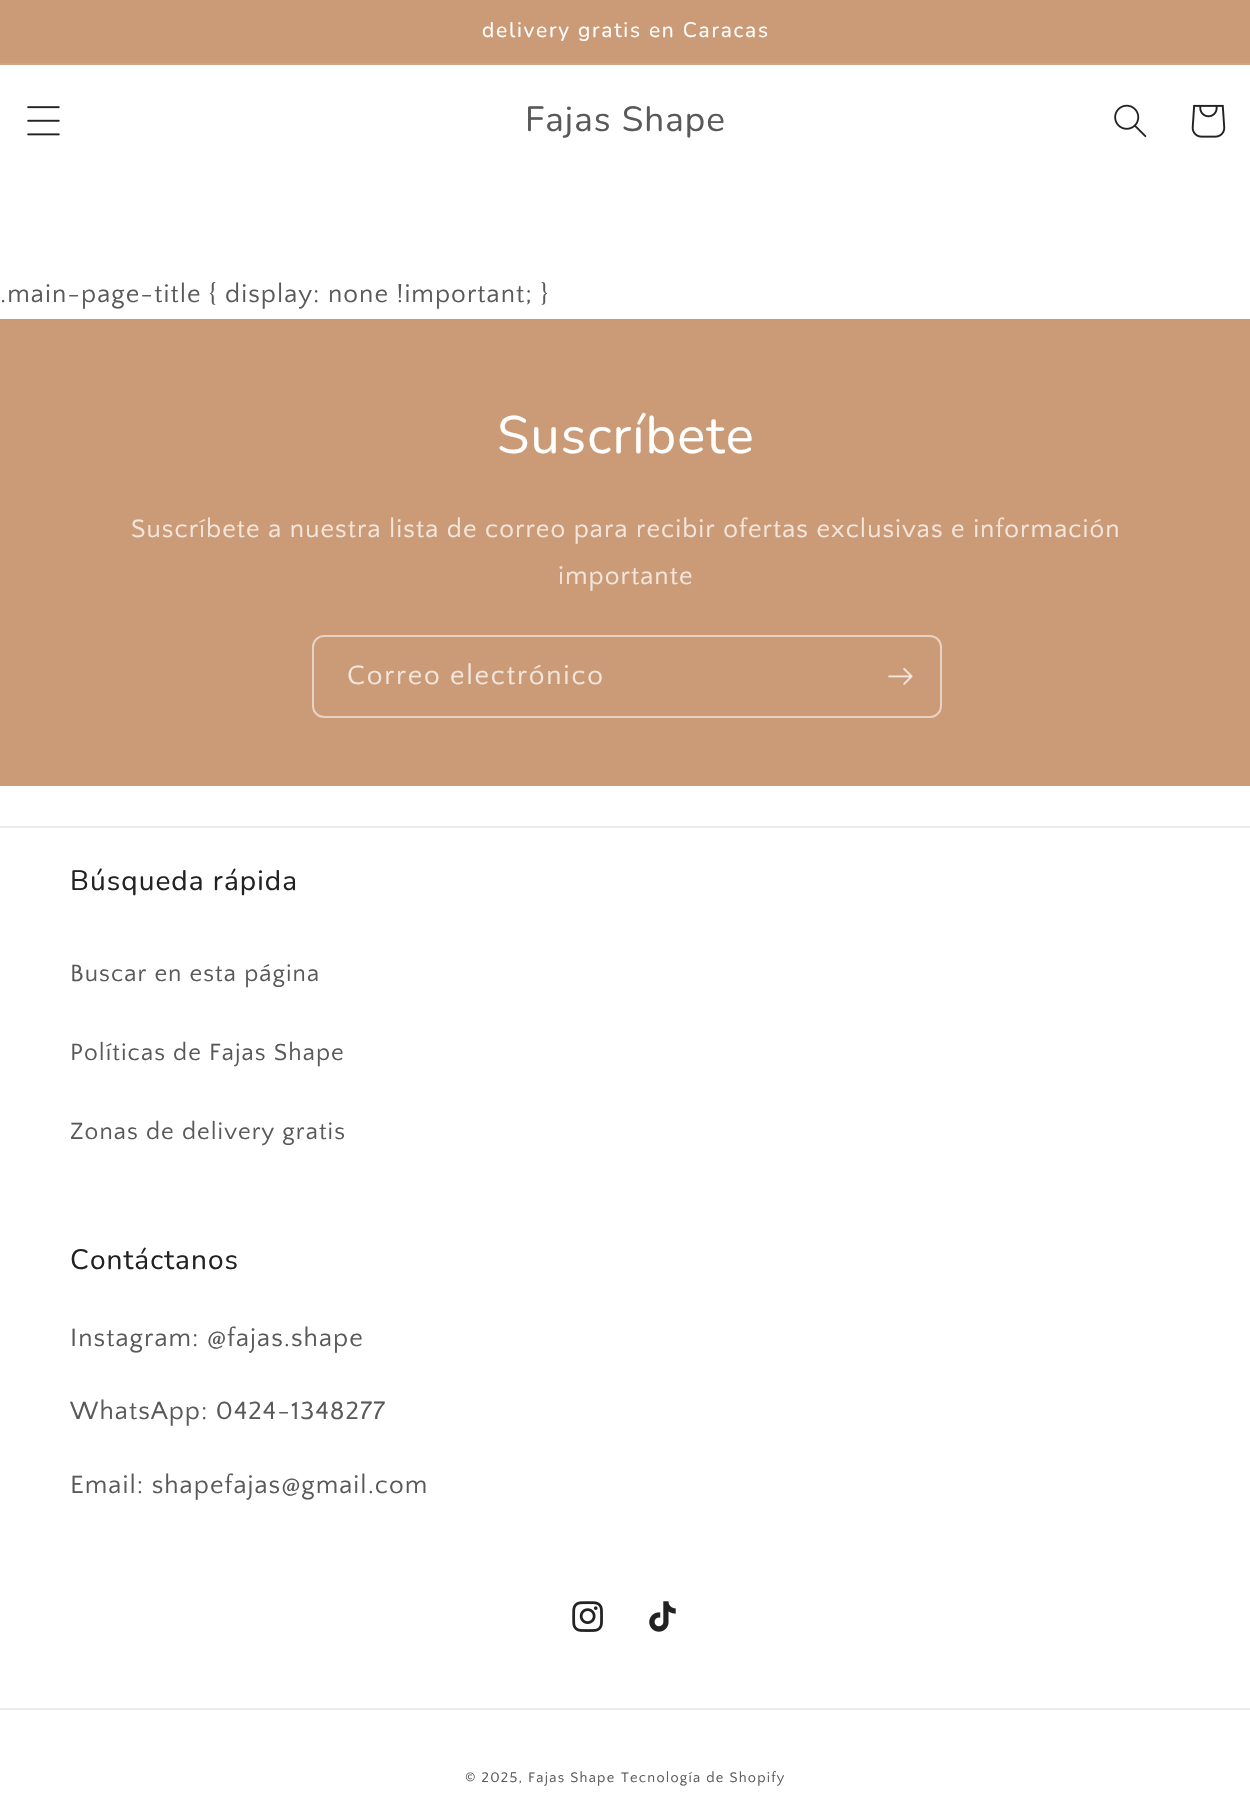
void draw(SkCanvas* canvas) {
	SkPaint paint;
	paint.setAntiAlias(true);
	auto spacedText = [&](const char* s, float x, float y, const SkFont& font, const SkPaint& ink, float letter, float word) {
		std::vector<SkGlyphID> glyphs(font.countText(s, strlen(s), SkTextEncoding::kUTF8));
		std::vector<float> xs(glyphs.size());
		font.textToGlyphs(s, strlen(s), SkTextEncoding::kUTF8, glyphs);
		font.getXPos(glyphs, xs, x);
		float extra = 0;
		for (size_t i = 0; i < glyphs.size(); i++) {
			xs[i] += extra;
			extra += letter + word * (glyphs[i] == font.unicharToGlyph(' '));
		}
		canvas->drawTextBlob(SkTextBlob::MakeFromPosHGlyphs(glyphs, xs, y, font), 0, 0, ink);
	};
	canvas->clear(0xffffffff);
	paint.setColor(0xffcb9b78);
	canvas->drawRect(SkRect::MakeXYWH(0, 0, 1250, 63), paint);
	paint.setColor(0xffcfa383);
	canvas->drawRect(SkRect::MakeXYWH(0, 63, 1250, 2), paint);
	SkFont f1(fontMgr->matchFamilyStyle("Nunito", SkFontStyle::Normal()), 21);
	f1.setSubpixel(true);
	paint.setColor(0xffffffff);
	spacedText("delivery gratis en Caracas", 482, 37, f1, paint, 1.75, 0);
	canvas->drawImageRect(SkImages::DeferredFromEncodedData(SkData::MakeFromFileName("img1.png")), SkRect::MakeXYWH(27, 106, 33, 30), SkSamplingOptions());
	SkFont f2(fontMgr->matchFamilyStyle("Nunito", SkFontStyle::Normal()), 35);
	f2.setSubpixel(true);
	paint.setColor(0xff595959);
	spacedText("Fajas Shape", 525, 131, f2, paint, 1.05, 0);
	canvas->drawImageRect(SkImages::DeferredFromEncodedData(SkData::MakeFromFileName("img2.png")), SkRect::MakeXYWH(1114, 104, 33, 34), SkSamplingOptions());
	canvas->drawImageRect(SkImages::DeferredFromEncodedData(SkData::MakeFromFileName("img3.png")), SkRect::MakeXYWH(1191, 104, 35, 34), SkSamplingOptions());
	SkFont f3(fontMgr->matchFamilyStyle("Quattrocento Sans", SkFontStyle::Normal()), 26.25);
	f3.setSubpixel(true);
	spacedText(".main-page-title { display: none !important; }", 0, 302, f3, paint, 1.05, 0);
	paint.setColor(0xffcb9b78);
	canvas->drawRect(SkRect::MakeXYWH(0, 319, 1250, 467), paint);
	SkFont f4(fontMgr->matchFamilyStyle("Nunito", SkFontStyle::Normal()), 52.5);
	f4.setSubpixel(true);
	paint.setColor(0xffffffff);
	spacedText("Suscríbete", 497, 453, f4, paint, 1.05, 0);
	paint.setColor(0xfff2e6dd);
	spacedText("Suscríbete a nuestra lista de correo para recibir ofertas exclusivas e información", 131, 537, f3, paint, 1.05, 0);
	spacedText("importante", 558, 584, f3, paint, 1.05, 0);
	paint.setStroke(true);
	paint.setStrokeWidth(2);
	paint.setColor(0xffe8d2c2);
	canvas->drawRoundRect(SkRect::MakeXYWH(313, 636, 628, 81), 11, 11, paint);
	SkFont f5(fontMgr->matchFamilyStyle("Quattrocento Sans", SkFontStyle::Normal()), 28);
	f5.setSubpixel(true);
	paint.setStroke(false);
	paint.setColor(0xfff2e6dd);
	spacedText("Correo electrónico", 347, 684, f5, paint, 1.75, 0);
	canvas->drawImageRect(SkImages::DeferredFromEncodedData(SkData::MakeFromFileName("img4.png")), SkRect::MakeXYWH(888, 668, 25, 17), SkSamplingOptions());
	paint.setColor(0xffededed);
	canvas->drawRect(SkRect::MakeXYWH(0, 826, 1250, 2), paint);
	SkFont f6(fontMgr->matchFamilyStyle("Nunito", SkFontStyle::Normal()), 28);
	f6.setSubpixel(true);
	paint.setColor(0xff222222);
	spacedText("Búsqueda rápida", 70, 890, f6, paint, 1.05, 0);
	SkFont f7(fontMgr->matchFamilyStyle("Quattrocento Sans", SkFontStyle::Normal()), 24.5);
	f7.setSubpixel(true);
	paint.setColor(0xff595959);
	spacedText("Buscar en esta página", 70, 981, f7, paint, 1.05, 0);
	spacedText("Políticas de Fajas Shape", 70, 1060, f7, paint, 1.05, 0);
	spacedText("Zonas de delivery gratis", 70, 1139, f7, paint, 1.05, 0);
	paint.setColor(0xff222222);
	spacedText("Contáctanos", 70, 1269, f6, paint, 1.05, 0);
	paint.setColor(0xff595959);
	spacedText("Instagram: @fajas.shape", 70, 1346, f3, paint, 1.05, 0);
	spacedText("WhatsApp: 0424-1348277", 70, 1419, f3, paint, 1.05, 0);
	spacedText("Email: shapefajas@gmail.com", 70, 1493, f3, paint, 1.05, 0);
	canvas->drawImageRect(SkImages::DeferredFromEncodedData(SkData::MakeFromFileName("img5.png")), SkRect::MakeXYWH(572, 1601, 31, 31), SkSamplingOptions());
	canvas->drawImageRect(SkImages::DeferredFromEncodedData(SkData::MakeFromFileName("img6.png")), SkRect::MakeXYWH(649, 1601, 27, 31), SkSamplingOptions());
	paint.setColor(0xffededed);
	canvas->drawRect(SkRect::MakeXYWH(0, 1708, 1250, 2), paint);
	SkFont f8(fontMgr->matchFamilyStyle("Quattrocento Sans", SkFontStyle::Normal()), 14.5);
	f8.setSubpixel(true);
	paint.setColor(0xff595959);
	spacedText("© 2025, Fajas Shape", 465, 1782, f8, paint, 1.25, 0);
	spacedText("Tecnología de Shopify", 621, 1782, f8, paint, 1.25, 0);
}
